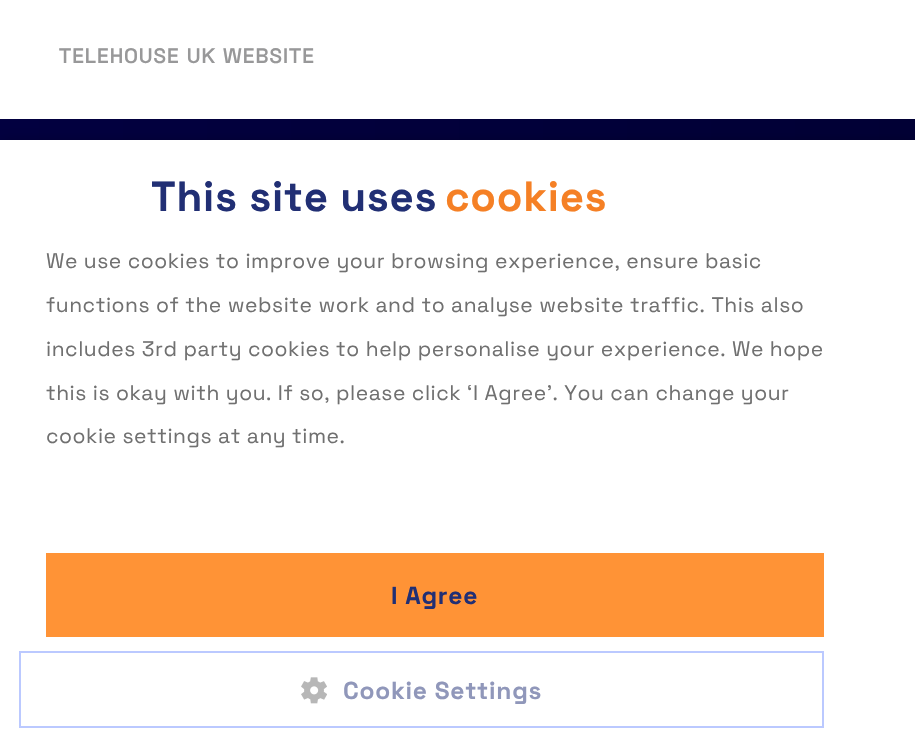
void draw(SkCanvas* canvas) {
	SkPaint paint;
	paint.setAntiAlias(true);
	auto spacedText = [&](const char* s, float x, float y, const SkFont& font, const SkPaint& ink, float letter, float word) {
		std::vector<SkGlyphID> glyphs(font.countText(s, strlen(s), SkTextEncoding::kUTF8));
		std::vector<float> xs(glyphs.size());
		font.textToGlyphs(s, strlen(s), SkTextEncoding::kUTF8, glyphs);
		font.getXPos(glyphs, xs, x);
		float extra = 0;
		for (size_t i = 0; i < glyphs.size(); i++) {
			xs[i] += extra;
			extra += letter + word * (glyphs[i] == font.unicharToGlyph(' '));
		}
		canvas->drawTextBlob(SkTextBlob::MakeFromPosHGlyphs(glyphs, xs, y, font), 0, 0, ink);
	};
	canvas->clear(0xffffffff);
	SkFont f1(fontMgr->matchFamilyStyle("Space Grotesk", SkFontStyle(600, SkFontStyle::kNormal_Width, SkFontStyle::kUpright_Slant)), 21);
	f1.setSubpixel(true);
	paint.setColor(0xff989899);
	spacedText("TELEHOUSE UK WEBSITE", 59, 63, f1, paint, 1.05, 0);
	{
		const SkColor colors[] = {0xff020040, 0xff010035};
		const float stops[] = {0, 1};
		const SkPoint ends[] = {{-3.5, 571}, {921, 571}};
		paint.setShader(SkGradientShader::MakeLinear(ends, colors, stops, 2, SkTileMode::kClamp));
		paint.setAlpha(255);
	}
	canvas->drawRect(SkRect::MakeXYWH(0, 119, 915, 21), paint);
	paint.setShader(nullptr);
	paint.setColor(0x59000000);
	paint.setMaskFilter(SkMaskFilter::MakeBlur(kNormal_SkBlurStyle, 7));
	canvas->drawRect(SkRect::MakeXYWH(2, 144, 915, 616), paint);
	paint.setMaskFilter(nullptr);
	paint.setColor(0xffffffff);
	canvas->drawRect(SkRect::MakeXYWH(0, 140, 915, 615), paint);
	SkFont f2(fontMgr->matchFamilyStyle("Space Grotesk", SkFontStyle::Bold()), 42);
	f2.setSubpixel(true);
	paint.setColor(0xff212f74);
	spacedText("This site uses", 151, 211, f2, paint, 0.75, 0);
	paint.setColor(0xfff58025);
	spacedText("cookies", 445, 211, f2, paint, 0.75, 0);
	SkFont f3(fontMgr->matchFamilyStyle("Space Grotesk", SkFontStyle::Normal()), 21);
	f3.setSubpixel(true);
	paint.setColor(0xff707070);
	spacedText("We use cookies to improve your browsing experience, ensure basic", 46, 268, f3, paint, 0.53, 0);
	spacedText("functions of the website work and to analyse website traffic. This also", 46, 312, f3, paint, 0.53, 0);
	spacedText("includes 3rd party cookies to help personalise your experience. We hope", 46, 356, f3, paint, 0.53, 0);
	spacedText("this is okay with you. If so, please click ‘I Agree’. You can change your", 46, 400, f3, paint, 0.53, 0);
	spacedText("cookie settings at any time.", 46, 443, f3, paint, 0.53, 0);
	paint.setColor(0xffff9336);
	canvas->drawRect(SkRect::MakeXYWH(46, 553, 778, 84), paint);
	SkFont f4(fontMgr->matchFamilyStyle("Space Grotesk", SkFontStyle::Bold()), 24.5);
	f4.setSubpixel(true);
	paint.setColor(0xff212f74);
	spacedText("I Agree", 391, 604, f4, paint, 0.75, 0);
	paint.setStroke(true);
	paint.setStrokeWidth(2);
	paint.setColor(0xffbbc9ff);
	canvas->drawRect(SkRect::MakeXYWH(20, 652, 803, 75), paint);
	canvas->drawImageRect(SkImages::DeferredFromEncodedData(SkData::MakeFromFileName("img1.png")), SkRect::MakeXYWH(301, 677, 26, 27), SkSamplingOptions());
	paint.setStroke(false);
	paint.setColor(0xff9097ba);
	spacedText("Cookie Settings", 343, 699, f4, paint, 0.75, 0);
}
